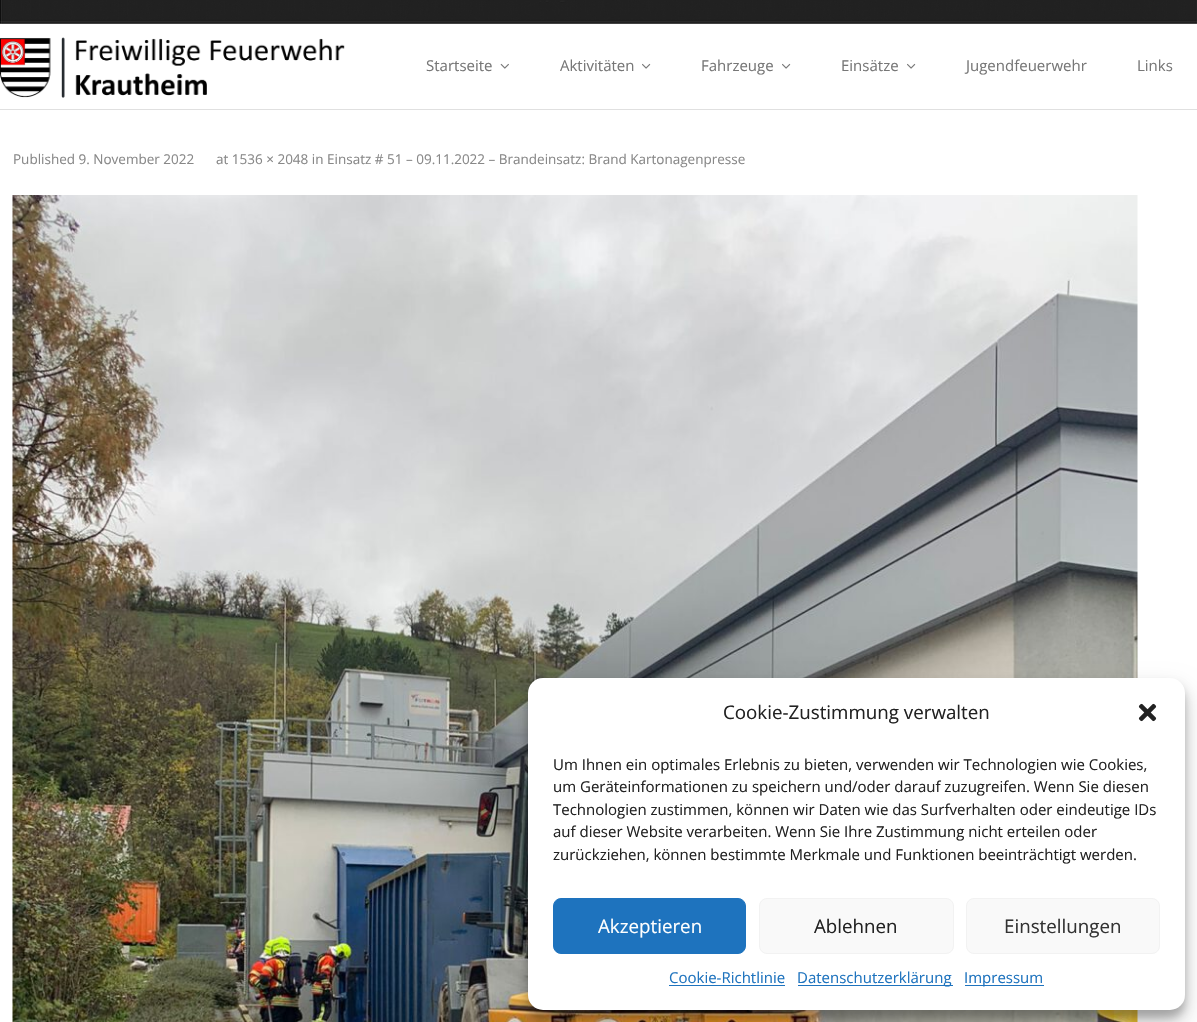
void draw(SkCanvas* canvas) {
	SkPaint paint;
	paint.setAntiAlias(true);
	canvas->clear(0xffffffff);
	canvas->drawImageRect(SkImages::DeferredFromEncodedData(SkData::MakeFromFileName("img1.png")), SkRect::MakeXYWH(0, 0, 1197, 24), SkSamplingOptions());
	paint.setColor(0xffe0e0e0);
	canvas->drawRect(SkRect::MakeXYWH(0, 109, 1197, 1), paint);
	canvas->drawImageRect(SkImages::DeferredFromEncodedData(SkData::MakeFromFileName("img2.png")), SkRect::MakeXYWH(0, 37, 345, 61), SkSamplingOptions());
	SkFont f1(fontMgr->matchFamilyStyle("Open Sans", SkFontStyle::Normal()), 15);
	f1.setSubpixel(true);
	paint.setColor(0xff777777);
	canvas->drawString("Startseite", 426, 71, f1, paint);
	canvas->drawImageRect(SkImages::DeferredFromEncodedData(SkData::MakeFromFileName("img3.png")), SkRect::MakeXYWH(500, 63, 9, 6), SkSamplingOptions());
	canvas->drawString("Aktivitäten", 560, 71, f1, paint);
	canvas->drawImageRect(SkImages::DeferredFromEncodedData(SkData::MakeFromFileName("img4.png")), SkRect::MakeXYWH(642, 63, 9, 6), SkSamplingOptions());
	canvas->drawString("Fahrzeuge", 701, 71, f1, paint);
	canvas->drawImageRect(SkImages::DeferredFromEncodedData(SkData::MakeFromFileName("img4.png")), SkRect::MakeXYWH(782, 63, 9, 6), SkSamplingOptions());
	canvas->drawString("Einsätze", 841, 71, f1, paint);
	canvas->drawImageRect(SkImages::DeferredFromEncodedData(SkData::MakeFromFileName("img4.png")), SkRect::MakeXYWH(907, 63, 9, 6), SkSamplingOptions());
	canvas->drawString("Jugendfeuerwehr", 966, 71, f1, paint);
	canvas->drawString("Links", 1137, 71, f1, paint);
	SkFont f2(fontMgr->matchFamilyStyle("Open Sans", SkFontStyle::Normal()), 13.5);
	f2.setSubpixel(true);
	paint.setColor(0xff888888);
	canvas->drawString("Published 9. November 2022", 13, 164, f2, paint);
	canvas->drawString("at 1536 × 2048 in Einsatz # 51 – 09.11.2022 – Brandeinsatz: Brand Kartonagenpresse", 216, 164, f2, paint);
	canvas->drawImageRect(SkImages::DeferredFromEncodedData(SkData::MakeFromFileName("img5.png")), SkRect::MakeXYWH(12, 195, 1126, 827), SkSamplingOptions());
	paint.setColor(0x3b000000);
	paint.setMaskFilter(SkMaskFilter::MakeBlur(kNormal_SkBlurStyle, 4));
	canvas->drawRoundRect(SkRect::MakeXYWH(528, 685, 657, 333), 15, 15, paint);
	paint.setMaskFilter(nullptr);
	paint.setColor(0x30000000);
	paint.setMaskFilter(SkMaskFilter::MakeBlur(kNormal_SkBlurStyle, 12.5));
	canvas->drawRoundRect(SkRect::MakeXYWH(528, 690, 657, 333), 15, 15, paint);
	paint.setMaskFilter(nullptr);
	paint.setColor(0xffffffff);
	canvas->drawRoundRect(SkRect::MakeXYWH(528, 678, 657, 332), 15, 15, paint);
	SkFont f3(fontMgr->matchFamilyStyle("Open Sans", SkFontStyle::Normal()), 18.75);
	f3.setSubpixel(true);
	paint.setColor(0xff222222);
	canvas->drawString("Cookie-Zustimmung verwalten", 723, 719, f3, paint);
	canvas->drawImageRect(SkImages::DeferredFromEncodedData(SkData::MakeFromFileName("img6.png")), SkRect::MakeXYWH(1138, 703, 19, 19), SkSamplingOptions());
	canvas->drawString("Um Ihnen ein optimales Erlebnis zu bieten, verwenden wir Technologien wie Cookies,", 553, 770, f1, paint);
	canvas->drawString("um Geräteinformationen zu speichern und/oder darauf zuzugreifen. Wenn Sie diesen", 553, 792, f1, paint);
	canvas->drawString("Technologien zustimmen, können wir Daten wie das Surfverhalten oder eindeutige IDs", 553, 815, f1, paint);
	canvas->drawString("auf dieser Website verarbeiten. Wenn Sie Ihre Zustimmung nicht erteilen oder", 553, 837, f1, paint);
	canvas->drawString("zurückziehen, können bestimmte Merkmale und Funktionen beeinträchtigt werden.", 553, 860, f1, paint);
	paint.setColor(0xff1e73be);
	canvas->drawRoundRect(SkRect::MakeXYWH(553.5, 898.5, 192, 55), 7.5, 7.5, paint);
	paint.setStroke(true);
	paint.setStrokeWidth(1);
	canvas->drawRoundRect(SkRect::MakeXYWH(553.5, 898.5, 192, 55), 7.5, 7.5, paint);
	paint.setStroke(false);
	paint.setColor(0xffffffff);
	canvas->drawString("Akzeptieren", 598, 933, f3, paint);
	paint.setColor(0xfff9f9f9);
	canvas->drawRoundRect(SkRect::MakeXYWH(759.5, 898.5, 194, 55), 7.5, 7.5, paint);
	paint.setStroke(true);
	paint.setColor(0xfff2f2f2);
	canvas->drawRoundRect(SkRect::MakeXYWH(759.5, 898.5, 194, 55), 7.5, 7.5, paint);
	paint.setStroke(false);
	paint.setColor(0xff222222);
	canvas->drawString("Ablehnen", 814, 933, f3, paint);
	paint.setColor(0xfff9f9f9);
	canvas->drawRoundRect(SkRect::MakeXYWH(966.5, 898.5, 193, 55), 7.5, 7.5, paint);
	paint.setStroke(true);
	paint.setColor(0xfff2f2f2);
	canvas->drawRoundRect(SkRect::MakeXYWH(966.5, 898.5, 193, 55), 7.5, 7.5, paint);
	paint.setStroke(false);
	paint.setColor(0xff333333);
	canvas->drawString("Einstellungen", 1004, 933, f3, paint);
	paint.setColor(0xff1e73be);
	canvas->drawString("Cookie-Richtlinie", 669, 983, f1, paint);
	canvas->drawRect(SkRect::MakeXYWH(669, 985, 116, 1), paint);
	canvas->drawRect(SkRect::MakeXYWH(798, 985, 155, 1), paint);
	canvas->drawString("Datenschutzerklärung", 797, 983, f1, paint);
	canvas->drawRect(SkRect::MakeXYWH(965, 985, 79, 1), paint);
	canvas->drawString("Impressum", 964, 983, f1, paint);
}
